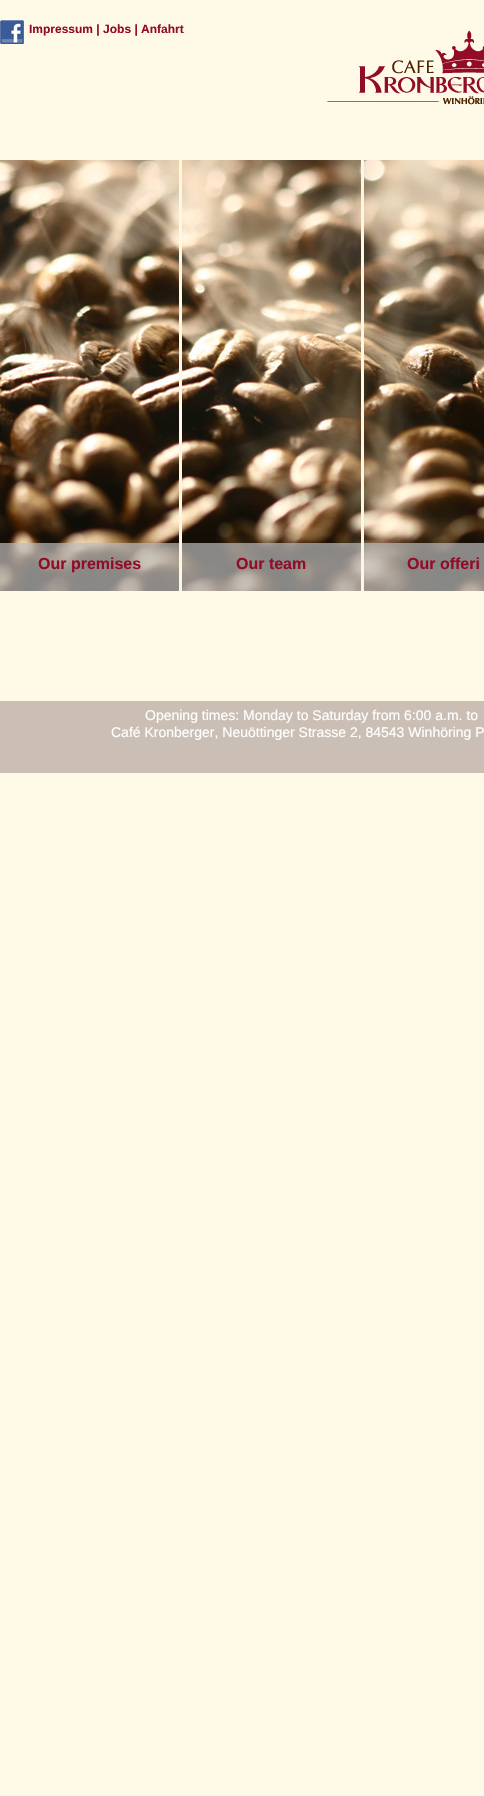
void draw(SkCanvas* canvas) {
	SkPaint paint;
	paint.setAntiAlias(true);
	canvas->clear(0xfffffae8);
	canvas->drawImageRect(SkImages::DeferredFromEncodedData(SkData::MakeFromFileName("img1.png")), SkRect::MakeXYWH(0, 20, 24, 24), SkSamplingOptions());
	SkFont f1(fontMgr->matchFamilyStyle("Liberation Sans", SkFontStyle::Bold()), 12);
	f1.setSubpixel(true);
	paint.setColor(0xff920b28);
	canvas->drawString("Impressum | Jobs | Anfahrt", 29, 33, f1, paint);
	canvas->drawImageRect(SkImages::DeferredFromEncodedData(SkData::MakeFromFileName("img2.png")), SkRect::MakeXYWH(326, 30, 158, 75), SkSamplingOptions());
	canvas->drawImageRect(SkImages::DeferredFromEncodedData(SkData::MakeFromFileName("img3.png")), SkRect::MakeXYWH(0, 160, 484, 431), SkSamplingOptions());
	paint.setColor(0xb3bbbbbb);
	canvas->drawRect(SkRect::MakeXYWH(0, 543, 179, 48), paint);
	SkFont f2(fontMgr->matchFamilyStyle("Liberation Sans", SkFontStyle::Bold()), 16);
	f2.setSubpixel(true);
	paint.setColor(0xff920b28);
	canvas->drawString("Our premises", 38, 569, f2, paint);
	paint.setColor(0xb3bbbbbb);
	canvas->drawRect(SkRect::MakeXYWH(182, 543, 179, 48), paint);
	paint.setColor(0xff920b28);
	canvas->drawString("Our team", 236, 569, f2, paint);
	paint.setColor(0xb3bbbbbb);
	canvas->drawRect(SkRect::MakeXYWH(364, 543, 120, 48), paint);
	paint.setColor(0xff920b28);
	canvas->drawString("Our offeri", 407, 569, f2, paint);
	paint.setColor(0xffcbbfb5);
	canvas->drawRect(SkRect::MakeXYWH(0, 701, 484, 72), paint);
	SkFont f3(fontMgr->matchFamilyStyle("Liberation Sans", SkFontStyle::Normal()), 14);
	f3.setSubpixel(true);
	paint.setColor(0xffffffff);
	canvas->drawString("Opening times: Monday to Saturday from 6:00 a.m. to", 145, 720, f3, paint);
	canvas->drawString("Café Kronberger, Neuöttinger Strasse 2, 84543 Winhöring P", 111, 737, f3, paint);
}
